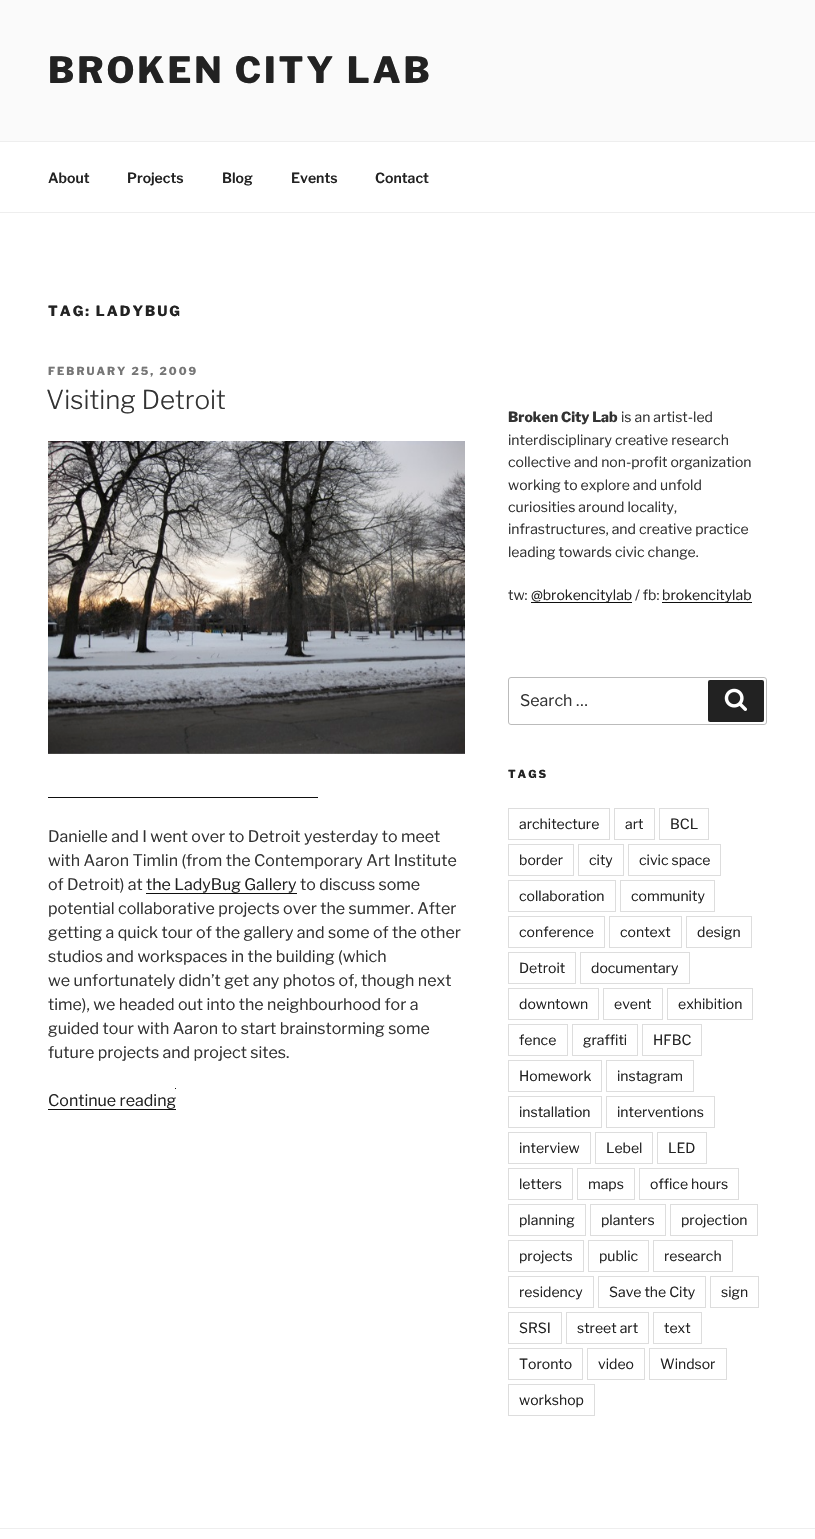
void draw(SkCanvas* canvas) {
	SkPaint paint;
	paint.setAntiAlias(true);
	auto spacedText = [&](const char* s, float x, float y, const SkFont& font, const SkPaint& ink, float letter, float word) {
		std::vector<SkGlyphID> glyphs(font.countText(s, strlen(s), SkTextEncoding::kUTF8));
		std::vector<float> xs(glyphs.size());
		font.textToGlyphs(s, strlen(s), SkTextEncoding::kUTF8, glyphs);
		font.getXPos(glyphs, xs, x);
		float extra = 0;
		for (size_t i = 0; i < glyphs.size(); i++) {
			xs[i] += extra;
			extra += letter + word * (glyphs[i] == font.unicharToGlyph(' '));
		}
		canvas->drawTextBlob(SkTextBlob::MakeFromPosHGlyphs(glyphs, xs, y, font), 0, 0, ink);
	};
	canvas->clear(0xffffffff);
	paint.setColor(0xfffafafa);
	canvas->drawRect(SkRect::MakeXYWH(0, 0, 815, 141), paint);
	SkFont f1(fontMgr->matchFamilyStyle("Libre Franklin", SkFontStyle(800, SkFontStyle::kNormal_Width, SkFontStyle::kUpright_Slant)), 36);
	f1.setSubpixel(true);
	paint.setColor(0xff222222);
	spacedText("BROKEN CITY LAB", 48, 83, f1, paint, 2.9, 0);
	paint.setColor(0xffeeeeee);
	canvas->drawRect(SkRect::MakeXYWH(0, 141, 815, 1), paint);
	canvas->drawRect(SkRect::MakeXYWH(0, 212, 815, 1), paint);
	SkFont f2(fontMgr->matchFamilyStyle("Libre Franklin", SkFontStyle(600, SkFontStyle::kNormal_Width, SkFontStyle::kUpright_Slant)), 14);
	f2.setSubpixel(true);
	paint.setColor(0xff222222);
	canvas->drawString("About", 48, 183, f2, paint);
	canvas->drawString("Projects", 127, 183, f2, paint);
	canvas->drawString("Blog", 222, 183, f2, paint);
	canvas->drawString("Events", 291, 183, f2, paint);
	canvas->drawString("Contact", 375, 183, f2, paint);
	SkFont f3(fontMgr->matchFamilyStyle("Libre Franklin", SkFontStyle(800, SkFontStyle::kNormal_Width, SkFontStyle::kUpright_Slant)), 14);
	f3.setSubpixel(true);
	spacedText("TAG: LADYBUG", 48, 316, f3, paint, 2, 0);
	SkFont f4(fontMgr->matchFamilyStyle("Libre Franklin", SkFontStyle(800, SkFontStyle::kNormal_Width, SkFontStyle::kUpright_Slant)), 11);
	f4.setSubpixel(true);
	paint.setColor(0xff767676);
	spacedText("FEBRUARY 25, 2009", 48, 375, f4, paint, 2, 0);
	SkFont f5(fontMgr->matchFamilyStyle("Libre Franklin", SkFontStyle(300, SkFontStyle::kNormal_Width, SkFontStyle::kUpright_Slant)), 26);
	f5.setSubpixel(true);
	paint.setColor(0xff333333);
	canvas->drawString("Visiting Detroit", 46, 409, f5, paint);
	canvas->drawImageRect(SkImages::DeferredFromEncodedData(SkData::MakeFromFileName("img1.png")), SkRect::MakeXYWH(48, 441, 417, 313), SkSamplingOptions());
	paint.setColor(0xff0f0f0f);
	canvas->drawRect(SkRect::MakeXYWH(48, 797, 270, 1), paint);
	SkFont f6(fontMgr->matchFamilyStyle("Libre Franklin", SkFontStyle::Normal()), 16);
	f6.setSubpixel(true);
	paint.setColor(0xff333333);
	canvas->drawString("Danielle and I went over to Detroit yesterday to meet", 48, 842, f6, paint);
	canvas->drawString("with Aaron Timlin (from the Contemporary Art Institute", 48, 866, f6, paint);
	canvas->drawString("of Detroit) at", 48, 890, f6, paint);
	paint.setColor(0xff222222);
	canvas->drawString("the LadyBug Gallery", 146, 890, f6, paint);
	paint.setColor(0xff0f0f0f);
	canvas->drawRect(SkRect::MakeXYWH(146, 893, 151, 1), paint);
	paint.setColor(0xff333333);
	canvas->drawString("to discuss some", 300, 890, f6, paint);
	canvas->drawString("potential collaborative projects over the summer. After", 48, 914, f6, paint);
	canvas->drawString("getting a quick tour of the gallery and some of the other", 48, 938, f6, paint);
	canvas->drawString("studios and workspaces in the building (which", 48, 962, f6, paint);
	canvas->drawString("we unfortunately didn’t get any photos of, though next", 48, 986, f6, paint);
	canvas->drawString("time), we headed out into the neighbourhood for a", 48, 1010, f6, paint);
	canvas->drawString("guided tour with Aaron to start brainstorming some", 48, 1034, f6, paint);
	canvas->drawString("future projects and project sites.", 48, 1058, f6, paint);
	paint.setColor(0xff222222);
	canvas->drawString("Continue reading", 48, 1106, f6, paint);
	paint.setColor(0xff0f0f0f);
	canvas->drawRect(SkRect::MakeXYWH(48, 1109, 128, 1), paint);
	canvas->drawRect(SkRect::MakeXYWH(175, 1088, 1, 1), paint);
	paint.setColor(0xff333333);
	canvas->drawString("Broken City Lab", 508, 422, f3, paint);
	SkFont f7(fontMgr->matchFamilyStyle("Libre Franklin", SkFontStyle::Normal()), 14);
	f7.setSubpixel(true);
	canvas->drawString("is an artist-led", 621, 422, f7, paint);
	canvas->drawString("interdisciplinary creative research", 508, 445, f7, paint);
	canvas->drawString("collective and non-profit organization", 508, 467, f7, paint);
	canvas->drawString("working to explore and unfold", 508, 490, f7, paint);
	canvas->drawString("curiosities around locality,", 508, 512, f7, paint);
	canvas->drawString("infrastructures, and creative practice", 508, 534, f7, paint);
	canvas->drawString("leading towards civic change.", 508, 557, f7, paint);
	canvas->drawString("tw:", 508, 600, f7, paint);
	paint.setColor(0xff0f0f0f);
	canvas->drawRect(SkRect::MakeXYWH(531, 602, 101, 1), paint);
	paint.setColor(0xff222222);
	canvas->drawString("@brokencitylab", 531, 600, f7, paint);
	paint.setColor(0xff333333);
	canvas->drawString("/ fb:", 635, 600, f7, paint);
	paint.setColor(0xff0f0f0f);
	canvas->drawRect(SkRect::MakeXYWH(662, 602, 90, 1), paint);
	paint.setColor(0xff222222);
	canvas->drawString("brokencitylab", 662, 600, f7, paint);
	paint.setStroke(true);
	paint.setStrokeWidth(1);
	paint.setColor(0xffbbbbbb);
	canvas->drawRoundRect(SkRect::MakeXYWH(508.5, 677.5, 258, 47), 2.5, 2.5, paint);
	paint.setStroke(false);
	paint.setColor(0xff333333);
	canvas->drawString("Search …", 520, 706, f6, paint);
	paint.setColor(0xff222222);
	canvas->drawRoundRect(SkRect::MakeXYWH(708, 680, 56, 42), 2, 2, paint);
	canvas->drawImageRect(SkImages::DeferredFromEncodedData(SkData::MakeFromFileName("img2.png")), SkRect::MakeXYWH(724, 688, 23, 23), SkSamplingOptions());
	spacedText("TAGS", 508, 778, f4, paint, 2, 0);
	paint.setStroke(true);
	paint.setColor(0xffdddddd);
	canvas->drawRect(SkRect::MakeXYWH(508.5, 808.5, 101, 31), paint);
	paint.setStroke(false);
	paint.setColor(0xff222222);
	canvas->drawString("architecture", 519, 829, f7, paint);
	paint.setStroke(true);
	paint.setColor(0xffdddddd);
	canvas->drawRect(SkRect::MakeXYWH(614.5, 808.5, 40, 31), paint);
	paint.setStroke(false);
	paint.setColor(0xff222222);
	canvas->drawString("art", 625, 829, f7, paint);
	paint.setStroke(true);
	paint.setColor(0xffdddddd);
	canvas->drawRect(SkRect::MakeXYWH(659.5, 808.5, 49, 31), paint);
	paint.setStroke(false);
	paint.setColor(0xff222222);
	canvas->drawString("BCL", 670, 829, f7, paint);
	paint.setStroke(true);
	paint.setColor(0xffdddddd);
	canvas->drawRect(SkRect::MakeXYWH(508.5, 844.5, 65, 31), paint);
	paint.setStroke(false);
	paint.setColor(0xff222222);
	canvas->drawString("border", 519, 865, f7, paint);
	paint.setStroke(true);
	paint.setColor(0xffdddddd);
	canvas->drawRect(SkRect::MakeXYWH(578.5, 844.5, 45, 31), paint);
	paint.setStroke(false);
	paint.setColor(0xff222222);
	canvas->drawString("city", 589, 865, f7, paint);
	paint.setStroke(true);
	paint.setColor(0xffdddddd);
	canvas->drawRect(SkRect::MakeXYWH(628.5, 844.5, 92, 31), paint);
	paint.setStroke(false);
	paint.setColor(0xff222222);
	canvas->drawString("civic space", 639, 865, f7, paint);
	paint.setStroke(true);
	paint.setColor(0xffdddddd);
	canvas->drawRect(SkRect::MakeXYWH(508.5, 880.5, 107, 31), paint);
	paint.setStroke(false);
	paint.setColor(0xff222222);
	canvas->drawString("collaboration", 519, 901, f7, paint);
	paint.setStroke(true);
	paint.setColor(0xffdddddd);
	canvas->drawRect(SkRect::MakeXYWH(620.5, 880.5, 94, 31), paint);
	paint.setStroke(false);
	paint.setColor(0xff222222);
	canvas->drawString("community", 631, 901, f7, paint);
	paint.setStroke(true);
	paint.setColor(0xffdddddd);
	canvas->drawRect(SkRect::MakeXYWH(508.5, 916.5, 96, 31), paint);
	paint.setStroke(false);
	paint.setColor(0xff222222);
	canvas->drawString("conference", 519, 937, f7, paint);
	paint.setStroke(true);
	paint.setColor(0xffdddddd);
	canvas->drawRect(SkRect::MakeXYWH(609.5, 916.5, 72, 31), paint);
	paint.setStroke(false);
	paint.setColor(0xff222222);
	canvas->drawString("context", 620, 937, f7, paint);
	paint.setStroke(true);
	paint.setColor(0xffdddddd);
	canvas->drawRect(SkRect::MakeXYWH(686.5, 916.5, 65, 31), paint);
	paint.setStroke(false);
	paint.setColor(0xff222222);
	canvas->drawString("design", 697, 937, f7, paint);
	paint.setStroke(true);
	paint.setColor(0xffdddddd);
	canvas->drawRect(SkRect::MakeXYWH(508.5, 952.5, 67, 31), paint);
	paint.setStroke(false);
	paint.setColor(0xff222222);
	canvas->drawString("Detroit", 519, 973, f7, paint);
	paint.setStroke(true);
	paint.setColor(0xffdddddd);
	canvas->drawRect(SkRect::MakeXYWH(580.5, 952.5, 109, 31), paint);
	paint.setStroke(false);
	paint.setColor(0xff222222);
	canvas->drawString("documentary", 591, 973, f7, paint);
	paint.setStroke(true);
	paint.setColor(0xffdddddd);
	canvas->drawRect(SkRect::MakeXYWH(508.5, 988.5, 90, 31), paint);
	paint.setStroke(false);
	paint.setColor(0xff222222);
	canvas->drawString("downtown", 519, 1009, f7, paint);
	paint.setStroke(true);
	paint.setColor(0xffdddddd);
	canvas->drawRect(SkRect::MakeXYWH(603.5, 988.5, 59, 31), paint);
	paint.setStroke(false);
	paint.setColor(0xff222222);
	canvas->drawString("event", 614, 1009, f7, paint);
	paint.setStroke(true);
	paint.setColor(0xffdddddd);
	canvas->drawRect(SkRect::MakeXYWH(667.5, 988.5, 85, 31), paint);
	paint.setStroke(false);
	paint.setColor(0xff222222);
	canvas->drawString("exhibition", 678, 1009, f7, paint);
	paint.setStroke(true);
	paint.setColor(0xffdddddd);
	canvas->drawRect(SkRect::MakeXYWH(508.5, 1024.5, 59, 31), paint);
	paint.setStroke(false);
	paint.setColor(0xff222222);
	canvas->drawString("fence", 519, 1045, f7, paint);
	paint.setStroke(true);
	paint.setColor(0xffdddddd);
	canvas->drawRect(SkRect::MakeXYWH(572.5, 1024.5, 65, 31), paint);
	paint.setStroke(false);
	paint.setColor(0xff222222);
	canvas->drawString("graffiti", 583, 1045, f7, paint);
	paint.setStroke(true);
	paint.setColor(0xffdddddd);
	canvas->drawRect(SkRect::MakeXYWH(642.5, 1024.5, 59, 31), paint);
	paint.setStroke(false);
	paint.setColor(0xff222222);
	canvas->drawString("HFBC", 653, 1045, f7, paint);
	paint.setStroke(true);
	paint.setColor(0xffdddddd);
	canvas->drawRect(SkRect::MakeXYWH(508.5, 1060.5, 93, 31), paint);
	paint.setStroke(false);
	paint.setColor(0xff222222);
	canvas->drawString("Homework", 519, 1081, f7, paint);
	paint.setStroke(true);
	paint.setColor(0xffdddddd);
	canvas->drawRect(SkRect::MakeXYWH(606.5, 1060.5, 87, 31), paint);
	paint.setStroke(false);
	paint.setColor(0xff222222);
	canvas->drawString("instagram", 617, 1081, f7, paint);
	paint.setStroke(true);
	paint.setColor(0xffdddddd);
	canvas->drawRect(SkRect::MakeXYWH(508.5, 1096.5, 93, 31), paint);
	paint.setStroke(false);
	paint.setColor(0xff222222);
	canvas->drawString("installation", 519, 1117, f7, paint);
	paint.setStroke(true);
	paint.setColor(0xffdddddd);
	canvas->drawRect(SkRect::MakeXYWH(606.5, 1096.5, 108, 31), paint);
	paint.setStroke(false);
	paint.setColor(0xff222222);
	canvas->drawString("interventions", 617, 1117, f7, paint);
	paint.setStroke(true);
	paint.setColor(0xffdddddd);
	canvas->drawRect(SkRect::MakeXYWH(508.5, 1132.5, 82, 31), paint);
	paint.setStroke(false);
	paint.setColor(0xff222222);
	canvas->drawString("interview", 519, 1153, f7, paint);
	paint.setStroke(true);
	paint.setColor(0xffdddddd);
	canvas->drawRect(SkRect::MakeXYWH(595.5, 1132.5, 57, 31), paint);
	paint.setStroke(false);
	paint.setColor(0xff222222);
	canvas->drawString("Lebel", 606, 1153, f7, paint);
	paint.setStroke(true);
	paint.setColor(0xffdddddd);
	canvas->drawRect(SkRect::MakeXYWH(657.5, 1132.5, 49, 31), paint);
	paint.setStroke(false);
	paint.setColor(0xff222222);
	canvas->drawString("LED", 668, 1153, f7, paint);
	paint.setStroke(true);
	paint.setColor(0xffdddddd);
	canvas->drawRect(SkRect::MakeXYWH(508.5, 1168.5, 64, 31), paint);
	paint.setStroke(false);
	paint.setColor(0xff222222);
	canvas->drawString("letters", 519, 1189, f7, paint);
	paint.setStroke(true);
	paint.setColor(0xffdddddd);
	canvas->drawRect(SkRect::MakeXYWH(577.5, 1168.5, 57, 31), paint);
	paint.setStroke(false);
	paint.setColor(0xff222222);
	canvas->drawString("maps", 588, 1189, f7, paint);
	paint.setStroke(true);
	paint.setColor(0xffdddddd);
	canvas->drawRect(SkRect::MakeXYWH(639.5, 1168.5, 99, 31), paint);
	paint.setStroke(false);
	paint.setColor(0xff222222);
	canvas->drawString("office hours", 650, 1189, f7, paint);
	paint.setStroke(true);
	paint.setColor(0xffdddddd);
	canvas->drawRect(SkRect::MakeXYWH(508.5, 1204.5, 77, 31), paint);
	paint.setStroke(false);
	paint.setColor(0xff222222);
	canvas->drawString("planning", 519, 1225, f7, paint);
	paint.setStroke(true);
	paint.setColor(0xffdddddd);
	canvas->drawRect(SkRect::MakeXYWH(590.5, 1204.5, 75, 31), paint);
	paint.setStroke(false);
	paint.setColor(0xff222222);
	canvas->drawString("planters", 601, 1225, f7, paint);
	paint.setStroke(true);
	paint.setColor(0xffdddddd);
	canvas->drawRect(SkRect::MakeXYWH(670.5, 1204.5, 87, 31), paint);
	paint.setStroke(false);
	paint.setColor(0xff222222);
	canvas->drawString("projection", 681, 1225, f7, paint);
	paint.setStroke(true);
	paint.setColor(0xffdddddd);
	canvas->drawRect(SkRect::MakeXYWH(508.5, 1240.5, 75, 31), paint);
	paint.setStroke(false);
	paint.setColor(0xff222222);
	canvas->drawString("projects", 519, 1261, f7, paint);
	paint.setStroke(true);
	paint.setColor(0xffdddddd);
	canvas->drawRect(SkRect::MakeXYWH(588.5, 1240.5, 60, 31), paint);
	paint.setStroke(false);
	paint.setColor(0xff222222);
	canvas->drawString("public", 599, 1261, f7, paint);
	paint.setStroke(true);
	paint.setColor(0xffdddddd);
	canvas->drawRect(SkRect::MakeXYWH(653.5, 1240.5, 79, 31), paint);
	paint.setStroke(false);
	paint.setColor(0xff222222);
	canvas->drawString("research", 664, 1261, f7, paint);
	paint.setStroke(true);
	paint.setColor(0xffdddddd);
	canvas->drawRect(SkRect::MakeXYWH(508.5, 1276.5, 85, 31), paint);
	paint.setStroke(false);
	paint.setColor(0xff222222);
	canvas->drawString("residency", 519, 1297, f7, paint);
	paint.setStroke(true);
	paint.setColor(0xffdddddd);
	canvas->drawRect(SkRect::MakeXYWH(598.5, 1276.5, 107, 31), paint);
	paint.setStroke(false);
	paint.setColor(0xff222222);
	canvas->drawString("Save the City", 609, 1297, f7, paint);
	paint.setStroke(true);
	paint.setColor(0xffdddddd);
	canvas->drawRect(SkRect::MakeXYWH(710.5, 1276.5, 48, 31), paint);
	paint.setStroke(false);
	paint.setColor(0xff222222);
	canvas->drawString("sign", 721, 1297, f7, paint);
	paint.setStroke(true);
	paint.setColor(0xffdddddd);
	canvas->drawRect(SkRect::MakeXYWH(508.5, 1312.5, 53, 31), paint);
	paint.setStroke(false);
	paint.setColor(0xff222222);
	canvas->drawString("SRSI", 519, 1333, f7, paint);
	paint.setStroke(true);
	paint.setColor(0xffdddddd);
	canvas->drawRect(SkRect::MakeXYWH(566.5, 1312.5, 82, 31), paint);
	paint.setStroke(false);
	paint.setColor(0xff222222);
	canvas->drawString("street art", 577, 1333, f7, paint);
	paint.setStroke(true);
	paint.setColor(0xffdddddd);
	canvas->drawRect(SkRect::MakeXYWH(653.5, 1312.5, 48, 31), paint);
	paint.setStroke(false);
	paint.setColor(0xff222222);
	canvas->drawString("text", 664, 1333, f7, paint);
	paint.setStroke(true);
	paint.setColor(0xffdddddd);
	canvas->drawRect(SkRect::MakeXYWH(508.5, 1348.5, 74, 31), paint);
	paint.setStroke(false);
	paint.setColor(0xff222222);
	canvas->drawString("Toronto", 519, 1369, f7, paint);
	paint.setStroke(true);
	paint.setColor(0xffdddddd);
	canvas->drawRect(SkRect::MakeXYWH(587.5, 1348.5, 57, 31), paint);
	paint.setStroke(false);
	paint.setColor(0xff222222);
	canvas->drawString("video", 598, 1369, f7, paint);
	paint.setStroke(true);
	paint.setColor(0xffdddddd);
	canvas->drawRect(SkRect::MakeXYWH(649.5, 1348.5, 77, 31), paint);
	paint.setStroke(false);
	paint.setColor(0xff222222);
	canvas->drawString("Windsor", 660, 1369, f7, paint);
	paint.setStroke(true);
	paint.setColor(0xffdddddd);
	canvas->drawRect(SkRect::MakeXYWH(508.5, 1384.5, 86, 31), paint);
	paint.setStroke(false);
	paint.setColor(0xff222222);
	canvas->drawString("workshop", 519, 1405, f7, paint);
	paint.setColor(0xffeeeeee);
	canvas->drawRect(SkRect::MakeXYWH(0, 1528, 815, 1), paint);
}
